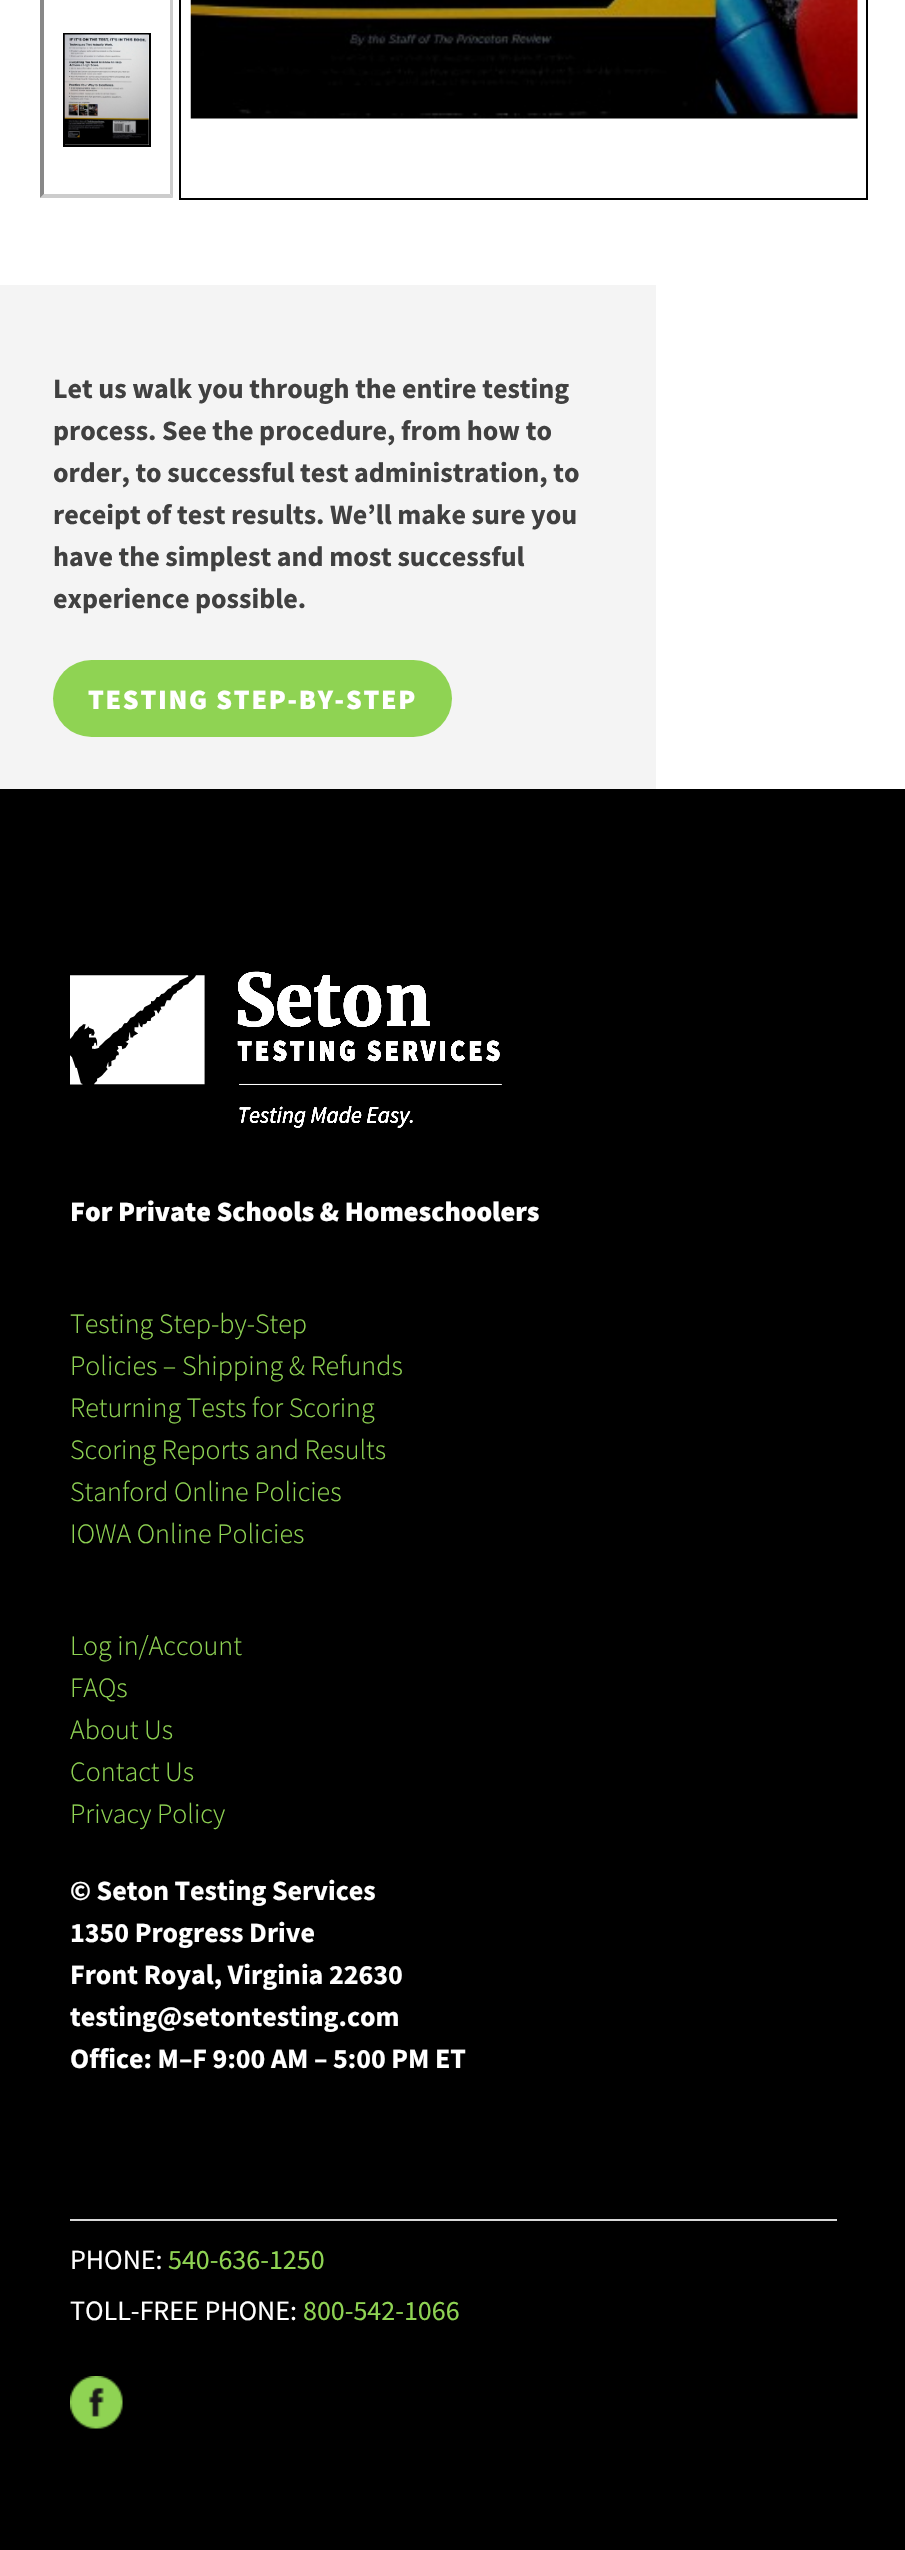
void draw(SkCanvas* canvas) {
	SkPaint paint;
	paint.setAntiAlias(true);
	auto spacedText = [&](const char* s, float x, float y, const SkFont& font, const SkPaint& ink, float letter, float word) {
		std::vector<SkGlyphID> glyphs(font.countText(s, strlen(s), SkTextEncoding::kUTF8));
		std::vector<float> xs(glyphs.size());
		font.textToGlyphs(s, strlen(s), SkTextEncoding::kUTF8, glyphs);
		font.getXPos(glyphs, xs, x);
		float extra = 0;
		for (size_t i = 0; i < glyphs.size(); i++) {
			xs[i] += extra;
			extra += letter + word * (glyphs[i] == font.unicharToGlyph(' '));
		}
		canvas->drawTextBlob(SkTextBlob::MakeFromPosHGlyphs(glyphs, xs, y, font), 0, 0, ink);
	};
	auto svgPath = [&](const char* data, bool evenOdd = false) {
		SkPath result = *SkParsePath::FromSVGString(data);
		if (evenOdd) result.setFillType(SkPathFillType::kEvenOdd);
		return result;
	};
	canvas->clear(0xffffffff);
	paint.setColor(0xffcccccc);
	canvas->drawPath(svgPath("M173-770V198L170 194V-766Z"), paint);
	canvas->drawPath(svgPath("M173 198H40L44 194H170Z"), paint);
	paint.setColor(0xff888888);
	canvas->drawPath(svgPath("M40 198V-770L44-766V194Z"), paint);
	paint.setStroke(true);
	paint.setStrokeWidth(2);
	paint.setColor(0xff000000);
	canvas->drawRect(SkRect::MakeXYWH(64, 34, 86, 112), paint);
	canvas->drawImageRect(SkImages::DeferredFromEncodedData(SkData::MakeFromFileName("img1.png")), SkRect::MakeXYWH(64, 34, 85, 111), SkSamplingOptions());
	canvas->drawRect(SkRect::MakeXYWH(180, -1, 687, 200), paint);
	canvas->drawImageRect(SkImages::DeferredFromEncodedData(SkData::MakeFromFileName("img2.png")), SkRect::MakeXYWH(190, 0, 668, 119), SkSamplingOptions());
	paint.setStroke(false);
	paint.setColor(0xfff4f4f4);
	canvas->drawRect(SkRect::MakeXYWH(0, 285, 656, 504), paint);
	SkFont f1(fontMgr->matchFamilyStyle("Source Sans Pro", SkFontStyle::Bold()), 28);
	f1.setSubpixel(true);
	paint.setColor(0xff404040);
	canvas->drawString("Let us walk you through the entire testing", 53, 398, f1, paint);
	canvas->drawString("process. See the procedure, from how to", 53, 440, f1, paint);
	canvas->drawString("order, to successful test administration, to", 53, 482, f1, paint);
	canvas->drawString("receipt of test results. We’ll make sure you", 53, 524, f1, paint);
	canvas->drawString("have the simplest and most successful", 53, 566, f1, paint);
	canvas->drawString("experience possible.", 53, 608, f1, paint);
	paint.setColor(0xff8fd353);
	canvas->drawRoundRect(SkRect::MakeXYWH(53, 660, 399, 77), 38.5, 38.5, paint);
	SkFont f2(fontMgr->matchFamilyStyle("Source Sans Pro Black", SkFontStyle(900, SkFontStyle::kNormal_Width, SkFontStyle::kUpright_Slant)), 28);
	f2.setSubpixel(true);
	paint.setColor(0xffffffff);
	spacedText("TESTING STEP-BY-STEP", 88, 709, f2, paint, 1.75, 0);
	paint.setColor(0xff000000);
	canvas->drawRect(SkRect::MakeXYWH(0, 789, 905, 1761), paint);
	canvas->drawImageRect(SkImages::DeferredFromEncodedData(SkData::MakeFromFileName("img3.png")), SkRect::MakeXYWH(70, 971, 432, 157), SkSamplingOptions());
	paint.setColor(0xffffffff);
	canvas->drawString("For Private Schools & Homeschoolers", 70, 1221, f2, paint);
	SkFont f3(fontMgr->matchFamilyStyle("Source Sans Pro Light", SkFontStyle(300, SkFontStyle::kNormal_Width, SkFontStyle::kUpright_Slant)), 28);
	f3.setSubpixel(true);
	paint.setColor(0xff8fd353);
	canvas->drawString("Testing Step-by-Step", 70, 1333, f3, paint);
	canvas->drawString("Policies – Shipping & Refunds", 70, 1375, f3, paint);
	canvas->drawString("Returning Tests for Scoring", 70, 1417, f3, paint);
	canvas->drawString("Scoring Reports and Results", 70, 1459, f3, paint);
	canvas->drawString("Stanford Online Policies", 70, 1501, f3, paint);
	canvas->drawString("IOWA Online Policies", 70, 1543, f3, paint);
	canvas->drawString("Log in/Account", 70, 1655, f3, paint);
	canvas->drawString("FAQs", 70, 1697, f3, paint);
	canvas->drawString("About Us", 70, 1739, f3, paint);
	canvas->drawString("Contact Us", 70, 1781, f3, paint);
	canvas->drawString("Privacy Policy", 70, 1823, f3, paint);
	paint.setColor(0xffffffff);
	canvas->drawString("© Seton Testing Services", 70, 1900, f1, paint);
	canvas->drawString("1350 Progress Drive", 70, 1942, f1, paint);
	canvas->drawString("Front Royal, Virginia 22630", 70, 1984, f1, paint);
	canvas->drawString("testing@setontesting.com", 70, 2026, f1, paint);
	canvas->drawString("Office: M–F 9:00 AM – 5:00 PM ET", 70, 2068, f1, paint);
	paint.setColor(0xffd8d8d8);
	canvas->drawRect(SkRect::MakeXYWH(70, 2219, 767, 2), paint);
	SkFont f4(fontMgr->matchFamilyStyle("Source Sans Pro", SkFontStyle::Normal()), 28);
	f4.setSubpixel(true);
	paint.setColor(0xffffffff);
	canvas->drawString("PHONE:", 70, 2269, f4, paint);
	paint.setColor(0xff8fd353);
	canvas->drawString("540-636-1250", 168, 2269, f4, paint);
	paint.setColor(0xffffffff);
	canvas->drawString("TOLL-FREE PHONE:", 70, 2320, f4, paint);
	paint.setColor(0xff8fd353);
	canvas->drawString("800-542-1066", 303, 2320, f4, paint);
	canvas->drawImageRect(SkImages::DeferredFromEncodedData(SkData::MakeFromFileName("img4.png")), SkRect::MakeXYWH(70, 2376, 53, 53), SkSamplingOptions());
}
